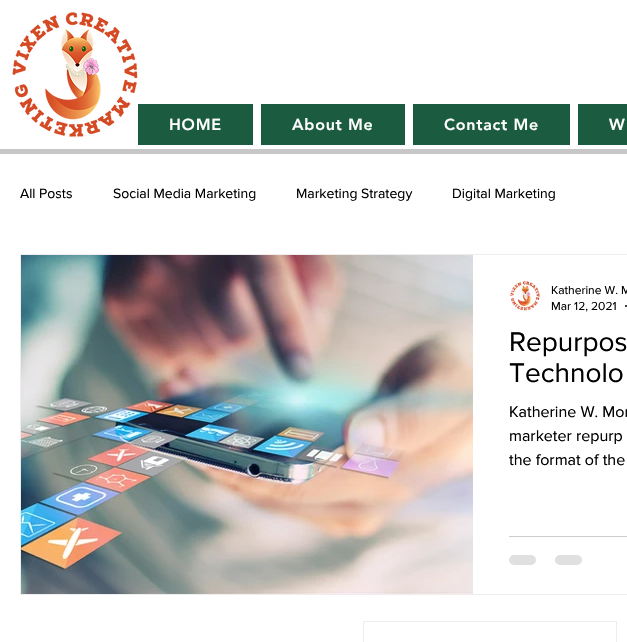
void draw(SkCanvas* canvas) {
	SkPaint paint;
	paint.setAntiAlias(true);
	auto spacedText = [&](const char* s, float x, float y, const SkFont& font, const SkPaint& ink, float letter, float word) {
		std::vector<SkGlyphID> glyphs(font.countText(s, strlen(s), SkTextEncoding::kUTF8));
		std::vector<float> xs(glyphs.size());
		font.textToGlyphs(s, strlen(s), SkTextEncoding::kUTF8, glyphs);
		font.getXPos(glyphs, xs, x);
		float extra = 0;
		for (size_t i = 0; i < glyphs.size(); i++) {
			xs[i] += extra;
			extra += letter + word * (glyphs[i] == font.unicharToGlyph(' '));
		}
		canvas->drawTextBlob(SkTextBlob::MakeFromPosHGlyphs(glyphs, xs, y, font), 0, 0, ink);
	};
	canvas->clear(0xffffffff);
	canvas->drawImageRect(SkImages::DeferredFromEncodedData(SkData::MakeFromFileName("img1.png")), SkRect::MakeXYWH(12, 12, 126, 125), SkSamplingOptions());
	paint.setColor(0xff1b5b3f);
	canvas->drawRect(SkRect::MakeXYWH(138, 104, 115, 41), paint);
	SkFont f1(fontMgr->matchFamilyStyle("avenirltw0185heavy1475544", SkFontStyle(900, SkFontStyle::kNormal_Width, SkFontStyle::kUpright_Slant)), 16);
	f1.setSubpixel(true);
	paint.setColor(0xffffffff);
	spacedText("HOME", 169, 130, f1, paint, 0.75, 0);
	paint.setColor(0xff1b5b3f);
	canvas->drawRect(SkRect::MakeXYWH(261, 104, 144, 41), paint);
	paint.setColor(0xffffffff);
	spacedText("About Me", 292, 130, f1, paint, 0.75, 0);
	paint.setColor(0xff1b5b3f);
	canvas->drawRect(SkRect::MakeXYWH(413, 104, 157, 41), paint);
	paint.setColor(0xffffffff);
	spacedText("Contact Me", 444, 130, f1, paint, 0.75, 0);
	paint.setColor(0xff1b5b3f);
	canvas->drawRect(SkRect::MakeXYWH(578, 104, 49, 41), paint);
	paint.setColor(0xffffffff);
	spacedText("W", 609, 130, f1, paint, 0.75, 0);
	paint.setColor(0xffc7c7c7);
	canvas->drawRect(SkRect::MakeXYWH(0, 149, 627, 5), paint);
	SkFont f2(fontMgr->matchFamilyStyle("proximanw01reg", SkFontStyle::Normal()), 14);
	f2.setSubpixel(true);
	paint.setColor(0xff000000);
	canvas->drawString("All Posts", 20, 198, f2, paint);
	canvas->drawString("Social Media Marketing", 113, 198, f2, paint);
	canvas->drawString("Marketing Strategy", 296, 198, f2, paint);
	canvas->drawString("Digital Marketing", 452, 198, f2, paint);
	paint.setStroke(true);
	paint.setStrokeWidth(1);
	paint.setColor(0xffeeecec);
	canvas->drawRect(SkRect::MakeXYWH(20.5, 254.5, 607, 340), paint);
	canvas->drawImageRect(SkImages::DeferredFromEncodedData(SkData::MakeFromFileName("img2.png")), SkRect::MakeXYWH(21, 255, 452, 339), SkSamplingOptions());
	canvas->drawImageRect(SkImages::DeferredFromEncodedData(SkData::MakeFromFileName("img3.png")), SkRect::MakeXYWH(509, 280, 32, 32), SkSamplingOptions());
	SkFont f3(fontMgr->matchFamilyStyle("proximanw01reg", SkFontStyle::Normal()), 12);
	f3.setSubpixel(true);
	paint.setStroke(false);
	paint.setColor(0xff000000);
	canvas->drawString("Katherine W. M", 551, 294, f3, paint);
	canvas->drawString("Mar 12, 2021", 551, 310, f3, paint);
	canvas->drawCircle(626, 306, 1, paint);
	SkFont f4(fontMgr->matchFamilyStyle("proximanw01reg", SkFontStyle::Normal()), 28);
	f4.setSubpixel(true);
	canvas->drawString("Repurpos", 509, 351, f4, paint);
	canvas->drawString("Technolo", 509, 382, f4, paint);
	SkFont f5(fontMgr->matchFamilyStyle("proximanw01reg", SkFontStyle::Normal()), 16);
	f5.setSubpixel(true);
	canvas->drawString("Katherine W. Mor", 509, 417, f5, paint);
	canvas->drawString("marketer repurp", 509, 441, f5, paint);
	canvas->drawString("the format of the", 509, 465, f5, paint);
	paint.setColor(0xffcccccc);
	canvas->drawRect(SkRect::MakeXYWH(509, 536, 118, 1), paint);
	paint.setColor(0xffe0e0e0);
	canvas->drawRoundRect(SkRect::MakeXYWH(509, 555, 27, 10), 5, 5, paint);
	canvas->drawRoundRect(SkRect::MakeXYWH(555, 555, 27, 10), 5, 5, paint);
	paint.setStroke(true);
	paint.setColor(0xffeeecec);
	canvas->drawRect(SkRect::MakeXYWH(363.5, 621.5, 253, 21), paint);
}
